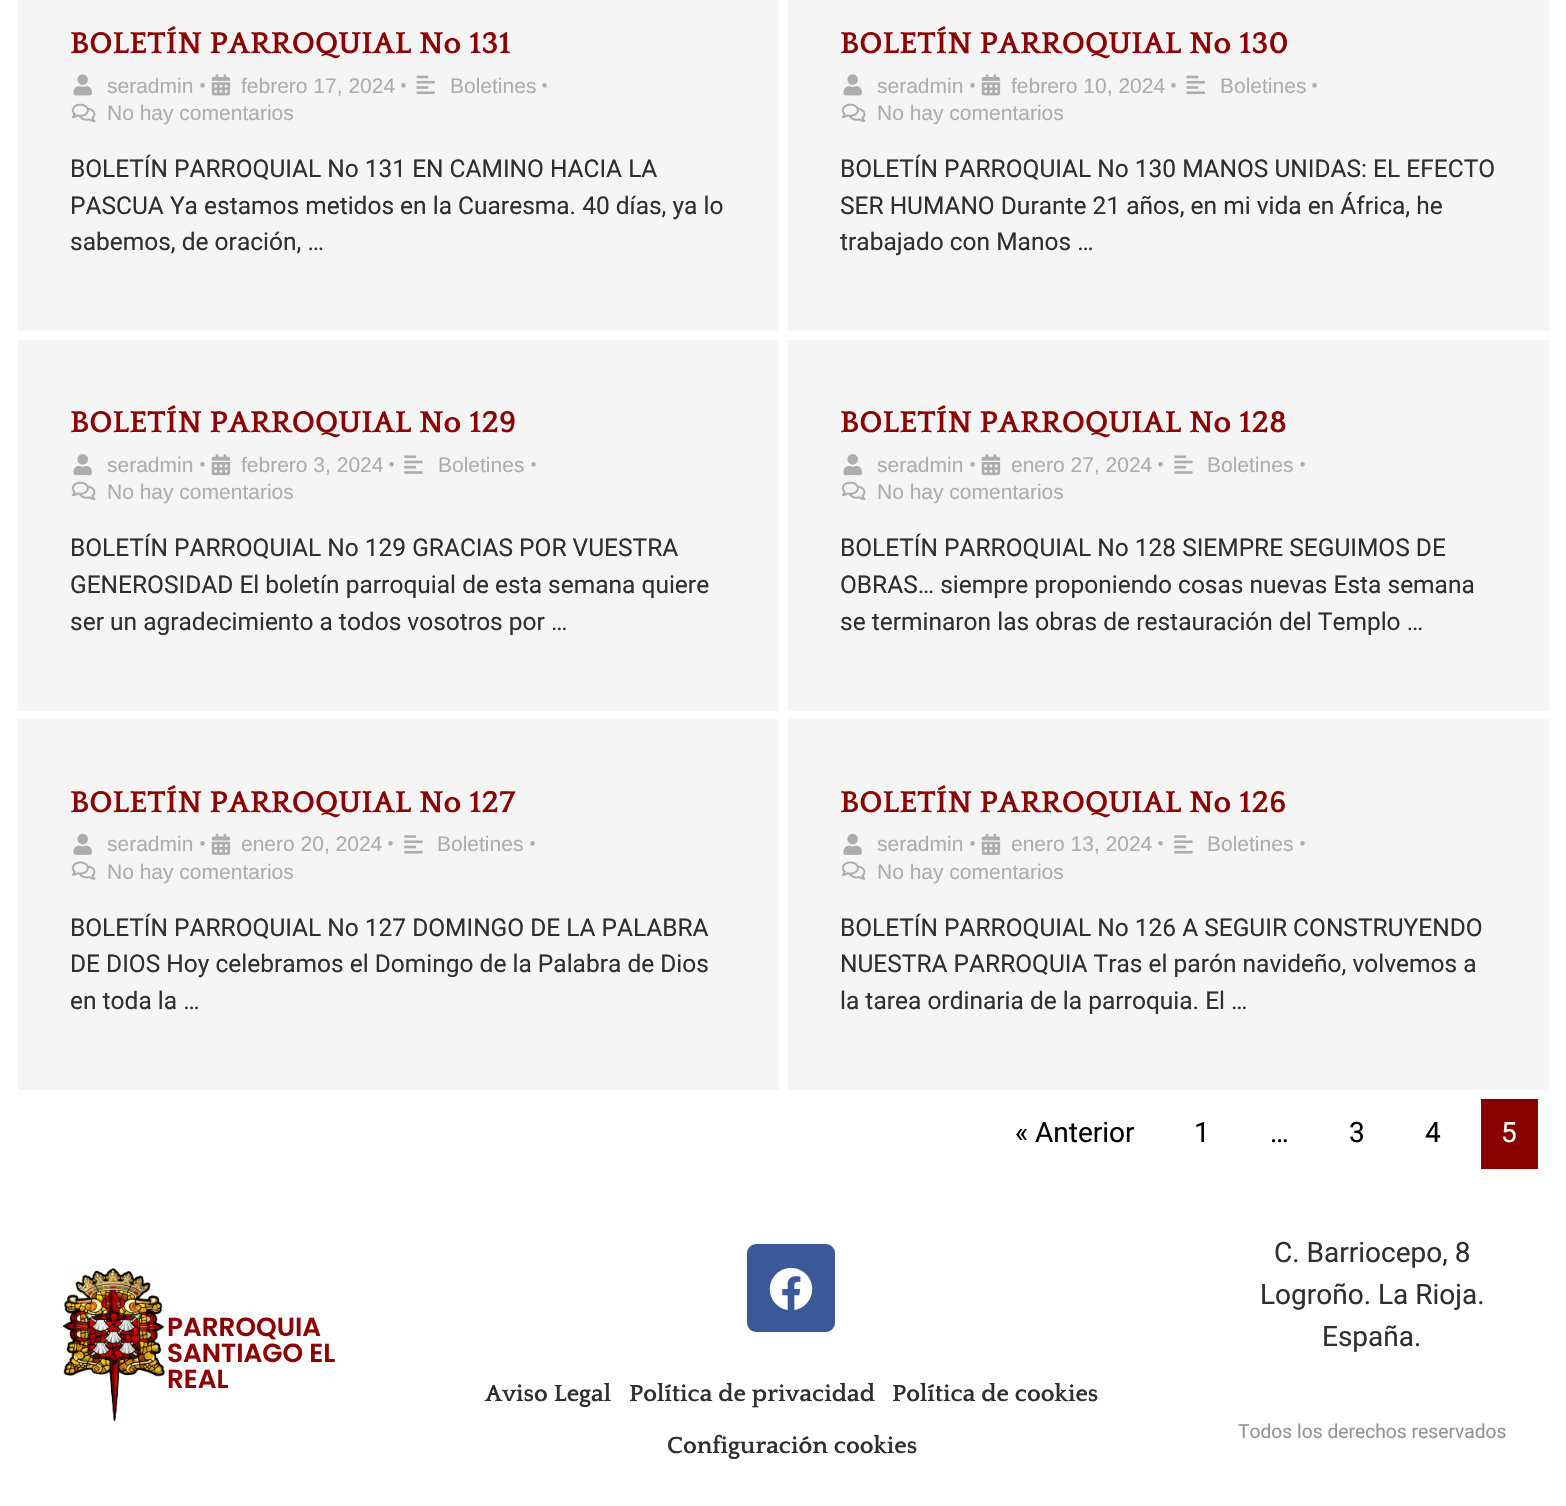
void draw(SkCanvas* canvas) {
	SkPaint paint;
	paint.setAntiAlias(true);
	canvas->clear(0xffffffff);
	paint.setColor(0xfff5f5f5);
	canvas->drawRect(SkRect::MakeXYWH(18, 0, 761, 331), paint);
	SkFont f1(fontMgr->matchFamilyStyle("Quattrocento", SkFontStyle::Bold()), 31.5);
	f1.setSubpixel(true);
	paint.setColor(0xff8d0303);
	canvas->drawString("BOLETÍN PARROQUIAL No 131", 70, 53, f1, paint);
	canvas->drawImageRect(SkImages::DeferredFromEncodedData(SkData::MakeFromFileName("img1.png")), SkRect::MakeXYWH(73, 74, 19, 22), SkSamplingOptions());
	SkFont f2(fontMgr->matchFamilyStyle("Liberation Sans", SkFontStyle::Normal()), 21);
	f2.setSubpixel(true);
	paint.setColor(0xffadadad);
	canvas->drawString("seradmin", 107, 93, f2, paint);
	SkFont f3(fontMgr->matchFamilyStyle("Roboto", SkFontStyle::Normal()), 21);
	f3.setSubpixel(true);
	canvas->drawString("•", 199, 93, f3, paint);
	canvas->drawImageRect(SkImages::DeferredFromEncodedData(SkData::MakeFromFileName("img2.png")), SkRect::MakeXYWH(211, 74, 20, 22), SkSamplingOptions());
	canvas->drawString("febrero 17, 2024", 241, 93, f2, paint);
	canvas->drawString("•", 400, 93, f3, paint);
	canvas->drawImageRect(SkImages::DeferredFromEncodedData(SkData::MakeFromFileName("img3.png")), SkRect::MakeXYWH(416, 75, 19, 20), SkSamplingOptions());
	canvas->drawString("Boletines", 450, 93, f2, paint);
	canvas->drawString("•", 541, 93, f3, paint);
	canvas->drawImageRect(SkImages::DeferredFromEncodedData(SkData::MakeFromFileName("img4.png")), SkRect::MakeXYWH(71, 103, 25, 19), SkSamplingOptions());
	canvas->drawString("No hay comentarios", 107, 120, f2, paint);
	SkFont f4(fontMgr->matchFamilyStyle("Roboto", SkFontStyle::Normal()), 24.5);
	f4.setSubpixel(true);
	paint.setColor(0xff2f2f2f);
	canvas->drawString("BOLETÍN PARROQUIAL No 131 EN CAMINO HACIA LA", 70, 177, f4, paint);
	canvas->drawString("PASCUA Ya estamos metidos en la Cuaresma. 40 días, ya lo", 70, 214, f4, paint);
	canvas->drawString("sabemos, de oración, …", 70, 250, f4, paint);
	paint.setColor(0xfff5f5f5);
	canvas->drawRect(SkRect::MakeXYWH(788, 0, 761, 331), paint);
	paint.setColor(0xff8d0303);
	canvas->drawString("BOLETÍN PARROQUIAL No 130", 840, 53, f1, paint);
	canvas->drawImageRect(SkImages::DeferredFromEncodedData(SkData::MakeFromFileName("img1.png")), SkRect::MakeXYWH(843, 74, 19, 22), SkSamplingOptions());
	paint.setColor(0xffadadad);
	canvas->drawString("seradmin", 877, 93, f2, paint);
	canvas->drawString("•", 969, 93, f3, paint);
	canvas->drawImageRect(SkImages::DeferredFromEncodedData(SkData::MakeFromFileName("img2.png")), SkRect::MakeXYWH(981, 74, 20, 22), SkSamplingOptions());
	canvas->drawString("febrero 10, 2024", 1011, 93, f2, paint);
	canvas->drawString("•", 1170, 93, f3, paint);
	canvas->drawImageRect(SkImages::DeferredFromEncodedData(SkData::MakeFromFileName("img3.png")), SkRect::MakeXYWH(1186, 75, 19, 20), SkSamplingOptions());
	canvas->drawString("Boletines", 1220, 93, f2, paint);
	canvas->drawString("•", 1311, 93, f3, paint);
	canvas->drawImageRect(SkImages::DeferredFromEncodedData(SkData::MakeFromFileName("img4.png")), SkRect::MakeXYWH(841, 103, 25, 19), SkSamplingOptions());
	canvas->drawString("No hay comentarios", 877, 120, f2, paint);
	paint.setColor(0xff2f2f2f);
	canvas->drawString("BOLETÍN PARROQUIAL No 130 MANOS UNIDAS: EL EFECTO", 840, 177, f4, paint);
	canvas->drawString("SER HUMANO Durante 21 años, en mi vida en África, he", 840, 214, f4, paint);
	canvas->drawString("trabajado con Manos …", 840, 250, f4, paint);
	paint.setColor(0xfff5f5f5);
	canvas->drawRect(SkRect::MakeXYWH(18, 340, 761, 371), paint);
	paint.setColor(0xff8d0303);
	canvas->drawString("BOLETÍN PARROQUIAL No 129", 70, 432, f1, paint);
	canvas->drawImageRect(SkImages::DeferredFromEncodedData(SkData::MakeFromFileName("img5.png")), SkRect::MakeXYWH(73, 454, 19, 22), SkSamplingOptions());
	paint.setColor(0xffadadad);
	canvas->drawString("seradmin", 107, 472, f2, paint);
	canvas->drawString("•", 199, 472, f3, paint);
	canvas->drawImageRect(SkImages::DeferredFromEncodedData(SkData::MakeFromFileName("img6.png")), SkRect::MakeXYWH(211, 454, 20, 22), SkSamplingOptions());
	canvas->drawString("febrero 3, 2024", 241, 472, f2, paint);
	canvas->drawString("•", 388, 472, f3, paint);
	canvas->drawImageRect(SkImages::DeferredFromEncodedData(SkData::MakeFromFileName("img7.png")), SkRect::MakeXYWH(404, 455, 19, 19), SkSamplingOptions());
	canvas->drawString("Boletines", 438, 472, f2, paint);
	canvas->drawString("•", 530, 472, f3, paint);
	canvas->drawImageRect(SkImages::DeferredFromEncodedData(SkData::MakeFromFileName("img4.png")), SkRect::MakeXYWH(71, 481, 25, 19), SkSamplingOptions());
	canvas->drawString("No hay comentarios", 107, 499, f2, paint);
	paint.setColor(0xff2f2f2f);
	canvas->drawString("BOLETÍN PARROQUIAL No 129 GRACIAS POR VUESTRA", 70, 556, f4, paint);
	canvas->drawString("GENEROSIDAD El boletín parroquial de esta semana quiere", 70, 593, f4, paint);
	canvas->drawString("ser un agradecimiento a todos vosotros por …", 70, 630, f4, paint);
	paint.setColor(0xfff5f5f5);
	canvas->drawRect(SkRect::MakeXYWH(788, 340, 761, 371), paint);
	paint.setColor(0xff8d0303);
	canvas->drawString("BOLETÍN PARROQUIAL No 128", 840, 432, f1, paint);
	canvas->drawImageRect(SkImages::DeferredFromEncodedData(SkData::MakeFromFileName("img5.png")), SkRect::MakeXYWH(843, 454, 19, 22), SkSamplingOptions());
	paint.setColor(0xffadadad);
	canvas->drawString("seradmin", 877, 472, f2, paint);
	canvas->drawString("•", 969, 472, f3, paint);
	canvas->drawImageRect(SkImages::DeferredFromEncodedData(SkData::MakeFromFileName("img6.png")), SkRect::MakeXYWH(981, 454, 20, 22), SkSamplingOptions());
	canvas->drawString("enero 27, 2024", 1011, 472, f2, paint);
	canvas->drawString("•", 1157, 472, f3, paint);
	canvas->drawImageRect(SkImages::DeferredFromEncodedData(SkData::MakeFromFileName("img7.png")), SkRect::MakeXYWH(1174, 455, 19, 19), SkSamplingOptions());
	canvas->drawString("Boletines", 1207, 472, f2, paint);
	canvas->drawString("•", 1299, 472, f3, paint);
	canvas->drawImageRect(SkImages::DeferredFromEncodedData(SkData::MakeFromFileName("img4.png")), SkRect::MakeXYWH(841, 481, 25, 19), SkSamplingOptions());
	canvas->drawString("No hay comentarios", 877, 499, f2, paint);
	paint.setColor(0xff2f2f2f);
	canvas->drawString("BOLETÍN PARROQUIAL No 128 SIEMPRE SEGUIMOS DE", 840, 556, f4, paint);
	canvas->drawString("OBRAS… siempre proponiendo cosas nuevas Esta semana", 840, 593, f4, paint);
	canvas->drawString("se terminaron las obras de restauración del Templo …", 840, 630, f4, paint);
	paint.setColor(0xfff5f5f5);
	canvas->drawRect(SkRect::MakeXYWH(18, 719, 761, 371), paint);
	paint.setColor(0xff8d0303);
	canvas->drawString("BOLETÍN PARROQUIAL No 127", 70, 812, f1, paint);
	canvas->drawImageRect(SkImages::DeferredFromEncodedData(SkData::MakeFromFileName("img8.png")), SkRect::MakeXYWH(73, 833, 19, 22), SkSamplingOptions());
	paint.setColor(0xffadadad);
	canvas->drawString("seradmin", 107, 851, f2, paint);
	canvas->drawString("•", 199, 851, f3, paint);
	canvas->drawImageRect(SkImages::DeferredFromEncodedData(SkData::MakeFromFileName("img9.png")), SkRect::MakeXYWH(211, 833, 20, 22), SkSamplingOptions());
	canvas->drawString("enero 20, 2024", 241, 851, f2, paint);
	canvas->drawString("•", 387, 851, f3, paint);
	canvas->drawImageRect(SkImages::DeferredFromEncodedData(SkData::MakeFromFileName("img10.png")), SkRect::MakeXYWH(404, 835, 19, 19), SkSamplingOptions());
	canvas->drawString("Boletines", 437, 851, f2, paint);
	canvas->drawString("•", 529, 851, f3, paint);
	canvas->drawImageRect(SkImages::DeferredFromEncodedData(SkData::MakeFromFileName("img11.png")), SkRect::MakeXYWH(71, 861, 25, 19), SkSamplingOptions());
	canvas->drawString("No hay comentarios", 107, 879, f2, paint);
	paint.setColor(0xff2f2f2f);
	canvas->drawString("BOLETÍN PARROQUIAL No 127 DOMINGO DE LA PALABRA", 70, 936, f4, paint);
	canvas->drawString("DE DIOS Hoy celebramos el Domingo de la Palabra de Dios", 70, 972, f4, paint);
	canvas->drawString("en toda la …", 70, 1009, f4, paint);
	paint.setColor(0xfff5f5f5);
	canvas->drawRect(SkRect::MakeXYWH(788, 719, 761, 371), paint);
	paint.setColor(0xff8d0303);
	canvas->drawString("BOLETÍN PARROQUIAL No 126", 840, 812, f1, paint);
	canvas->drawImageRect(SkImages::DeferredFromEncodedData(SkData::MakeFromFileName("img8.png")), SkRect::MakeXYWH(843, 833, 19, 22), SkSamplingOptions());
	paint.setColor(0xffadadad);
	canvas->drawString("seradmin", 877, 851, f2, paint);
	canvas->drawString("•", 969, 851, f3, paint);
	canvas->drawImageRect(SkImages::DeferredFromEncodedData(SkData::MakeFromFileName("img9.png")), SkRect::MakeXYWH(981, 833, 20, 22), SkSamplingOptions());
	canvas->drawString("enero 13, 2024", 1011, 851, f2, paint);
	canvas->drawString("•", 1157, 851, f3, paint);
	canvas->drawImageRect(SkImages::DeferredFromEncodedData(SkData::MakeFromFileName("img10.png")), SkRect::MakeXYWH(1174, 835, 19, 19), SkSamplingOptions());
	canvas->drawString("Boletines", 1207, 851, f2, paint);
	canvas->drawString("•", 1299, 851, f3, paint);
	canvas->drawImageRect(SkImages::DeferredFromEncodedData(SkData::MakeFromFileName("img11.png")), SkRect::MakeXYWH(841, 861, 25, 19), SkSamplingOptions());
	canvas->drawString("No hay comentarios", 877, 879, f2, paint);
	paint.setColor(0xff2f2f2f);
	canvas->drawString("BOLETÍN PARROQUIAL No 126 A SEGUIR CONSTRUYENDO", 840, 936, f4, paint);
	canvas->drawString("NUESTRA PARROQUIA Tras el parón navideño, volvemos a", 840, 972, f4, paint);
	canvas->drawString("la tarea ordinaria de la parroquia. El …", 840, 1009, f4, paint);
	SkFont f5(fontMgr->matchFamilyStyle("Roboto", SkFontStyle::Normal()), 28);
	f5.setSubpixel(true);
	paint.setColor(0xff000000);
	canvas->drawString("« Anterior", 1015, 1142, f5, paint);
	canvas->drawString("1", 1194, 1142, f5, paint);
	canvas->drawString("…", 1270, 1142, f5, paint);
	canvas->drawString("3", 1349, 1142, f5, paint);
	canvas->drawString("4", 1425, 1142, f5, paint);
	paint.setColor(0xff890000);
	canvas->drawRect(SkRect::MakeXYWH(1481, 1099, 57, 70), paint);
	paint.setColor(0xffffffff);
	canvas->drawString("5", 1501, 1142, f5, paint);
	canvas->drawImageRect(SkImages::DeferredFromEncodedData(SkData::MakeFromFileName("img12.png")), SkRect::MakeXYWH(63, 1267, 102, 155), SkSamplingOptions());
	SkFont f6(fontMgr->matchFamilyStyle("Poppins", SkFontStyle(600, SkFontStyle::kNormal_Width, SkFontStyle::kUpright_Slant)), 26.25);
	f6.setSubpixel(true);
	paint.setColor(0xff8d0303);
	canvas->drawString("PARROQUIA", 167, 1336, f6, paint);
	canvas->drawString("SANTIAGO EL", 167, 1362, f6, paint);
	canvas->drawString("REAL", 167, 1388, f6, paint);
	paint.setColor(0xff2f2f2f);
	canvas->drawString("C. Barriocepo, 8", 1274, 1262, f5, paint);
	canvas->drawString("Logroño. La Rioja.", 1260, 1304, f5, paint);
	canvas->drawString("España.", 1322, 1346, f5, paint);
	SkFont f7(fontMgr->matchFamilyStyle("Roboto", SkFontStyle::Normal()), 19.25);
	f7.setSubpixel(true);
	paint.setColor(0xff929292);
	canvas->drawString("Todos los derechos reservados", 1238, 1438, f7, paint);
	paint.setColor(0xff3b5998);
	canvas->drawRoundRect(SkRect::MakeXYWH(747, 1244, 88, 88), 9, 9, paint);
	canvas->drawImageRect(SkImages::DeferredFromEncodedData(SkData::MakeFromFileName("img13.png")), SkRect::MakeXYWH(769, 1267, 44, 43), SkSamplingOptions());
	SkFont f8(fontMgr->matchFamilyStyle("Quattrocento", SkFontStyle::Bold()), 24.5);
	f8.setSubpixel(true);
	paint.setColor(0xff2f2f2f);
	canvas->drawString("Aviso Legal", 485, 1401, f8, paint);
	canvas->drawString("Política de privacidad", 629, 1401, f8, paint);
	canvas->drawString("Política de cookies", 892, 1401, f8, paint);
	canvas->drawString("Configuración cookies", 667, 1453, f8, paint);
}
